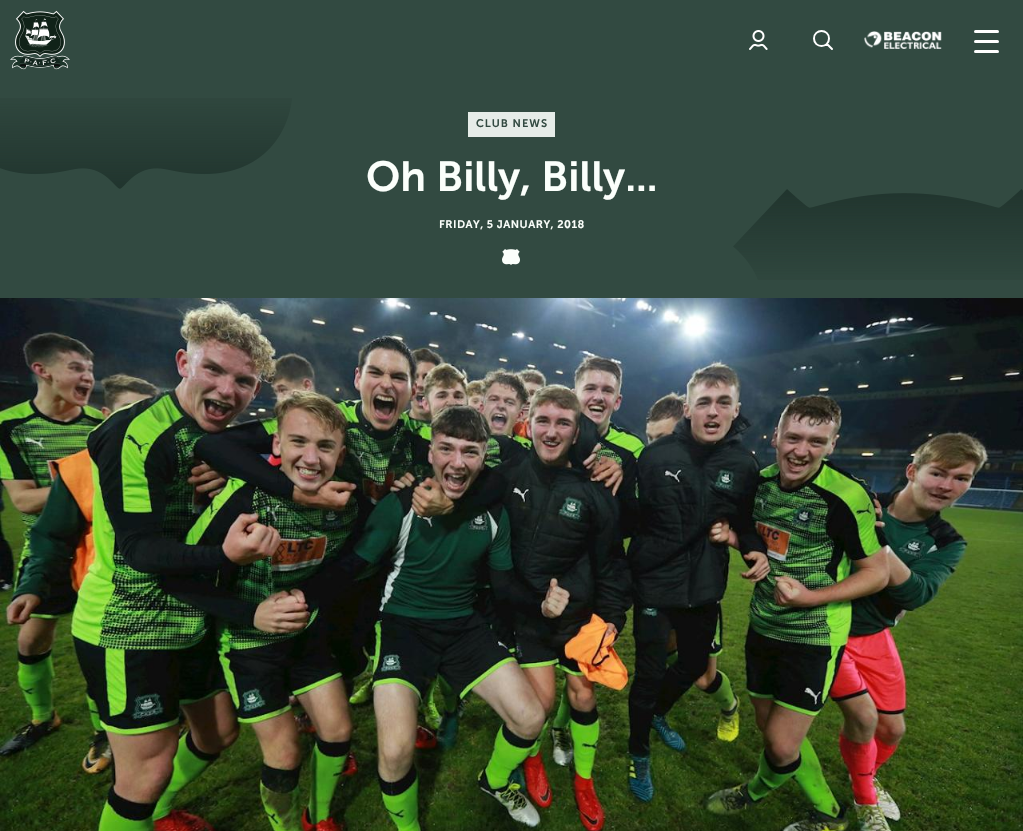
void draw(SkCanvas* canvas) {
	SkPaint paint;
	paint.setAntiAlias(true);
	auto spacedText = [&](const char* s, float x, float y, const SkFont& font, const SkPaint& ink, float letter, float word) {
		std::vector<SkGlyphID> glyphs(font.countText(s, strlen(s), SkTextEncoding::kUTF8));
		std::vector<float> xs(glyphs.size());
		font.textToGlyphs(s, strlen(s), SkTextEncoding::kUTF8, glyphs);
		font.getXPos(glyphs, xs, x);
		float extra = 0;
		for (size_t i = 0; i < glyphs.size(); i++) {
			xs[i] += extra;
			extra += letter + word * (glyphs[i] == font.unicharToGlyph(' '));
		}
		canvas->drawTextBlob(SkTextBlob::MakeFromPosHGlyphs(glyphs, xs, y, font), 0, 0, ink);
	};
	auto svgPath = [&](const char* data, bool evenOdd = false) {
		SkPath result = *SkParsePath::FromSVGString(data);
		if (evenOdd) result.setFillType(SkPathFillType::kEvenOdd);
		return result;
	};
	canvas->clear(0xff324a41);
	canvas->drawImageRect(SkImages::DeferredFromEncodedData(SkData::MakeFromFileName("img1.png")), SkRect::MakeXYWH(10, 10, 60, 60), SkSamplingOptions());
	canvas->drawImageRect(SkImages::DeferredFromEncodedData(SkData::MakeFromFileName("img2.png")), SkRect::MakeXYWH(749, 30, 19, 20), SkSamplingOptions());
	paint.setStroke(true);
	paint.setStrokeWidth(2);
	paint.setStrokeCap(SkPaint::kRound_Cap);
	paint.setStrokeJoin(SkPaint::kRound_Join);
	paint.setColor(0xffffffff);
	canvas->drawPath(svgPath("M827 44L832 49M829 38.5C829 48.5 814 48.5 814 38.5C814 28.5 829 28.5 829 38.5Z"), paint);
	canvas->drawImageRect(SkImages::DeferredFromEncodedData(SkData::MakeFromFileName("img3.png")), SkRect::MakeXYWH(864, 31, 78, 18), SkSamplingOptions());
	paint.setStroke(false);
	canvas->drawRoundRect(SkRect::MakeXYWH(974, 40, 25, 3), 1.5, 1.5, paint);
	canvas->drawRoundRect(SkRect::MakeXYWH(974, 30, 25, 3), 1.5, 1.5, paint);
	canvas->drawRoundRect(SkRect::MakeXYWH(974, 50, 25, 3), 1.5, 1.5, paint);
	canvas->drawImageRect(SkImages::DeferredFromEncodedData(SkData::MakeFromFileName("img4.png")), SkRect::MakeXYWH(0, 98, 292, 91), SkSamplingOptions());
	paint.setColor(0xffe6ece8);
	canvas->drawRect(SkRect::MakeXYWH(468, 112, 87, 25), paint);
	SkFont f1(fontMgr->matchFamilyStyle("Museo Sans", SkFontStyle(600, SkFontStyle::kNormal_Width, SkFontStyle::kUpright_Slant)), 11);
	f1.setSubpixel(true);
	paint.setColor(0xff324a41);
	spacedText("CLUB NEWS", 476, 127, f1, paint, 1, 0);
	SkFont f2(fontMgr->matchFamilyStyle("Museo Sans", SkFontStyle(600, SkFontStyle::kNormal_Width, SkFontStyle::kUpright_Slant)), 42);
	f2.setSubpixel(true);
	paint.setColor(0xfffbfffb);
	canvas->drawString("Oh Billy, Billy...", 366, 191, f2, paint);
	spacedText("FRIDAY, 5 JANUARY, 2018", 439, 228, f1, paint, 0.5, 0);
	canvas->drawImageRect(SkImages::DeferredFromEncodedData(SkData::MakeFromFileName("img5.png")), SkRect::MakeXYWH(502, 249, 18, 16), SkSamplingOptions());
	canvas->drawImageRect(SkImages::DeferredFromEncodedData(SkData::MakeFromFileName("img6.png")), SkRect::MakeXYWH(733, 189, 290, 91), SkSamplingOptions());
	canvas->drawImageRect(SkImages::DeferredFromEncodedData(SkData::MakeFromFileName("img7.png")), SkRect::MakeXYWH(0, 298, 1023, 533), SkSamplingOptions());
}
